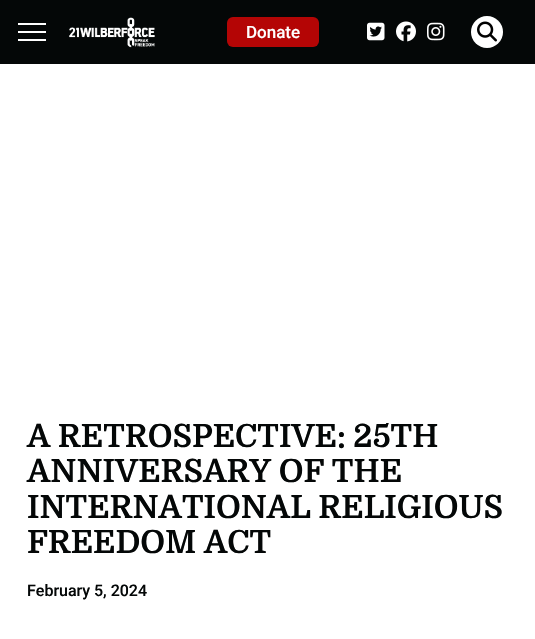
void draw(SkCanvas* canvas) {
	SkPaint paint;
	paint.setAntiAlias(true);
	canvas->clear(0xffffffff);
	paint.setColor(0xff040707);
	canvas->drawRect(SkRect::MakeXYWH(0, 0, 535, 64), paint);
	paint.setColor(0xffffffff);
	canvas->drawRect(SkRect::MakeXYWH(18, 23, 28, 2), paint);
	canvas->drawRect(SkRect::MakeXYWH(18, 31, 28, 2), paint);
	canvas->drawRect(SkRect::MakeXYWH(18, 39, 28, 2), paint);
	canvas->drawImageRect(SkImages::DeferredFromEncodedData(SkData::MakeFromFileName("img1.png")), SkRect::MakeXYWH(69, 17, 86, 31), SkSamplingOptions());
	paint.setColor(0xffb40505);
	canvas->drawRoundRect(SkRect::MakeXYWH(227, 17, 92, 30), 6, 6, paint);
	SkFont f1(fontMgr->matchFamilyStyle("Roboto", SkFontStyle(500, SkFontStyle::kNormal_Width, SkFontStyle::kUpright_Slant)), 17);
	f1.setSubpixel(true);
	paint.setColor(0xffffffff);
	canvas->drawString("Donate", 246, 38, f1, paint);
	canvas->drawImageRect(SkImages::DeferredFromEncodedData(SkData::MakeFromFileName("img2.png")), SkRect::MakeXYWH(367, 22, 18, 19), SkSamplingOptions());
	canvas->drawImageRect(SkImages::DeferredFromEncodedData(SkData::MakeFromFileName("img3.png")), SkRect::MakeXYWH(396, 21, 20, 21), SkSamplingOptions());
	canvas->drawImageRect(SkImages::DeferredFromEncodedData(SkData::MakeFromFileName("img4.png")), SkRect::MakeXYWH(427, 22, 18, 19), SkSamplingOptions());
	canvas->drawCircle(487, 32, 16, paint);
	canvas->drawImageRect(SkImages::DeferredFromEncodedData(SkData::MakeFromFileName("img5.png")), SkRect::MakeXYWH(477, 21, 20, 21), SkSamplingOptions());
	SkFont f2(fontMgr->matchFamilyStyle("Domine", SkFontStyle::Bold()), 32);
	f2.setSubpixel(true);
	paint.setColor(0xff040707);
	canvas->drawString("A RETROSPECTIVE: 25TH", 27, 447, f2, paint);
	canvas->drawString("ANNIVERSARY OF THE", 27, 482, f2, paint);
	canvas->drawString("INTERNATIONAL RELIGIOUS", 27, 518, f2, paint);
	canvas->drawString("FREEDOM ACT", 27, 553, f2, paint);
	SkFont f3(fontMgr->matchFamilyStyle("Roboto", SkFontStyle(500, SkFontStyle::kNormal_Width, SkFontStyle::kUpright_Slant)), 16);
	f3.setSubpixel(true);
	canvas->drawString("February 5, 2024", 27, 596, f3, paint);
}
